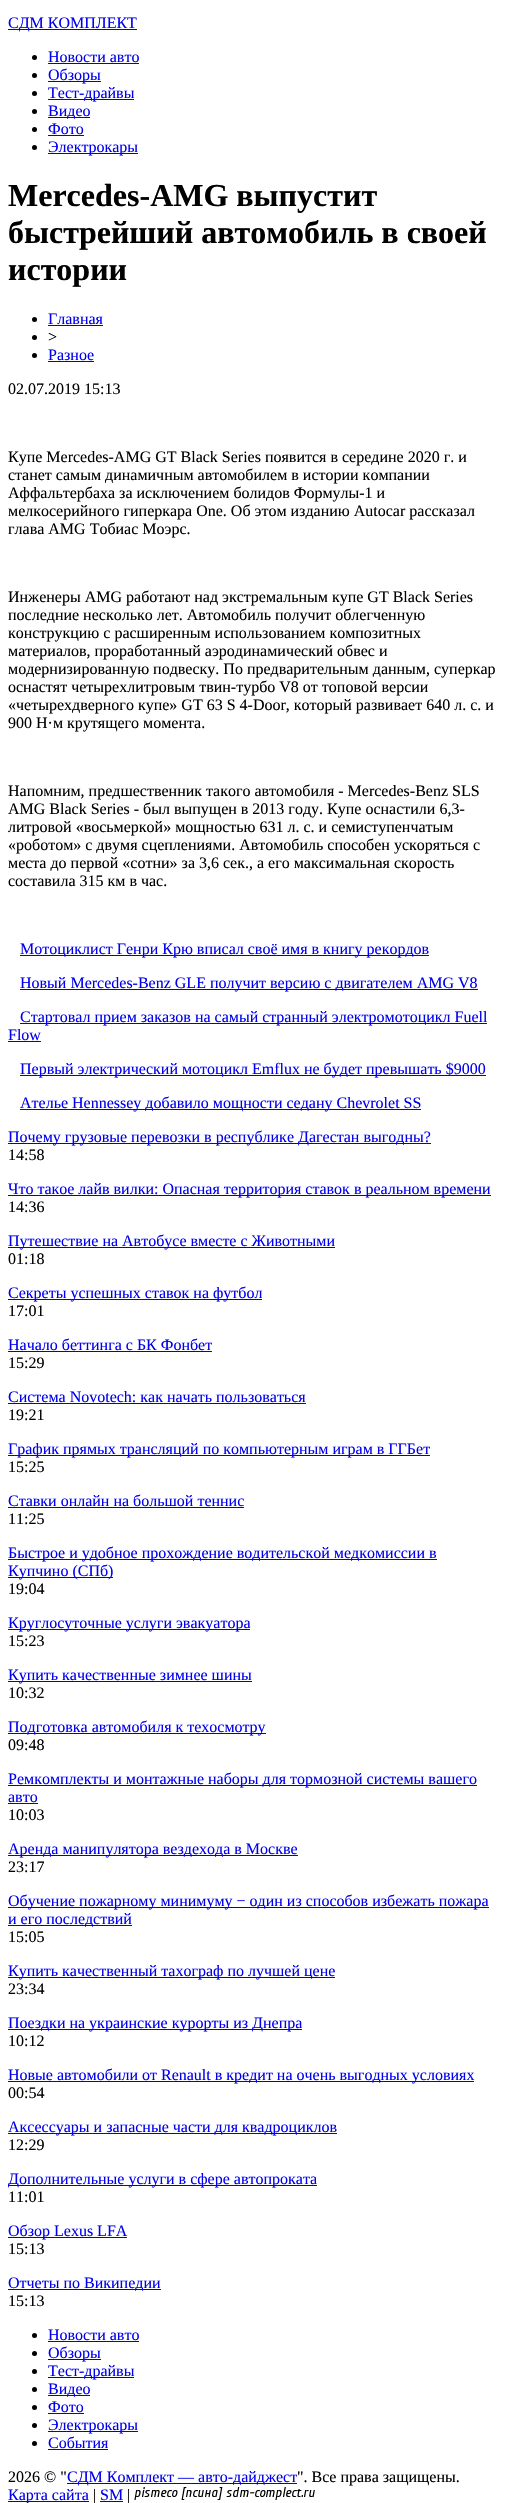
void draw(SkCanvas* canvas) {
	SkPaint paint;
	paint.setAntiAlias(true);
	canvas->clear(0xffffffff);
	paint.setColor(0xff0000ee);
	canvas->drawRect(SkRect::MakeXYWH(8, 29, 129, 1), paint);
	SkFont f1(fontMgr->matchFamilyStyle("Liberation Serif", SkFontStyle::Normal()), 16);
	f1.setSubpixel(true);
	canvas->drawString("СДМ КОМПЛЕКТ", 8, 28, f1, paint);
	paint.setColor(0xff000000);
	canvas->drawCircle(34.5, 57.5, 2.5, paint);
	paint.setColor(0xff0000ee);
	canvas->drawString("Новости авто", 48, 62, f1, paint);
	canvas->drawRect(SkRect::MakeXYWH(48, 63, 91, 1), paint);
	paint.setColor(0xff000000);
	canvas->drawCircle(34.5, 75.5, 2.5, paint);
	paint.setColor(0xff0000ee);
	canvas->drawRect(SkRect::MakeXYWH(48, 81, 53, 1), paint);
	canvas->drawString("Обзоры", 48, 80, f1, paint);
	paint.setColor(0xff000000);
	canvas->drawCircle(34.5, 93.5, 2.5, paint);
	paint.setColor(0xff0000ee);
	canvas->drawRect(SkRect::MakeXYWH(48, 99, 86, 1), paint);
	canvas->drawString("Тест-драйвы", 48, 98, f1, paint);
	paint.setColor(0xff000000);
	canvas->drawCircle(34.5, 111.5, 2.5, paint);
	paint.setColor(0xff0000ee);
	canvas->drawRect(SkRect::MakeXYWH(48, 117, 42, 1), paint);
	canvas->drawString("Видео", 48, 116, f1, paint);
	paint.setColor(0xff000000);
	canvas->drawCircle(34.5, 129.5, 2.5, paint);
	paint.setColor(0xff0000ee);
	canvas->drawString("Фото", 48, 134, f1, paint);
	canvas->drawRect(SkRect::MakeXYWH(48, 135, 36, 1), paint);
	paint.setColor(0xff000000);
	canvas->drawCircle(34.5, 147.5, 2.5, paint);
	paint.setColor(0xff0000ee);
	canvas->drawRect(SkRect::MakeXYWH(48, 153, 90, 1), paint);
	canvas->drawString("Электрокары", 48, 152, f1, paint);
	SkFont f2(fontMgr->matchFamilyStyle("Liberation Serif", SkFontStyle::Bold()), 32);
	f2.setSubpixel(true);
	paint.setColor(0xff000000);
	canvas->drawString("Mercedes-AMG выпустит", 8, 206, f2, paint);
	canvas->drawString("быстрейший автомобиль в своей", 8, 243, f2, paint);
	canvas->drawString("истории", 8, 280, f2, paint);
	canvas->drawCircle(34.5, 319.5, 2.5, paint);
	paint.setColor(0xff0000ee);
	canvas->drawString("Главная", 48, 324, f1, paint);
	canvas->drawRect(SkRect::MakeXYWH(48, 325, 55, 1), paint);
	paint.setColor(0xff000000);
	canvas->drawCircle(34.5, 337.5, 2.5, paint);
	canvas->drawString(">", 48, 342, f1, paint);
	canvas->drawCircle(34.5, 355.5, 2.5, paint);
	paint.setColor(0xff0000ee);
	canvas->drawString("Разное", 48, 360, f1, paint);
	canvas->drawRect(SkRect::MakeXYWH(48, 361, 46, 1), paint);
	paint.setColor(0xff000000);
	canvas->drawString("02.07.2019 15:13", 8, 394, f1, paint);
	canvas->drawString("Купе Mercedes-AMG GT Black Series появится в середине 2020 г. и", 8, 462, f1, paint);
	canvas->drawString("станет самым динамичным автомобилем в истории компании", 8, 480, f1, paint);
	canvas->drawString("Аффальтербаха за исключением болидов Формулы-1 и", 8, 498, f1, paint);
	canvas->drawString("мелкосерийного гиперкара One. Об этом изданию Autocar рассказал", 8, 516, f1, paint);
	canvas->drawString("глава AMG Тобиас Моэрс.", 8, 534, f1, paint);
	canvas->drawString("Инженеры AMG работают над экстремальным купе GT Black Series", 8, 602, f1, paint);
	canvas->drawString("последние несколько лет. Автомобиль получит облегченную", 8, 620, f1, paint);
	canvas->drawString("конструкцию с расширенным использованием композитных", 8, 638, f1, paint);
	canvas->drawString("материалов, проработанный аэродинамический обвес и", 8, 656, f1, paint);
	canvas->drawString("модернизированную подвеску. По предварительным данным, суперкар", 8, 674, f1, paint);
	canvas->drawString("оснастят четырехлитровым твин-турбо V8 от топовой версии", 8, 692, f1, paint);
	canvas->drawString("«четырехдверного купе» GT 63 S 4-Door, который развивает 640 л. с. и", 8, 710, f1, paint);
	canvas->drawString("900 Н·м крутящего момента.", 8, 728, f1, paint);
	canvas->drawString("Напомним, предшественник такого автомобиля - Mercedes-Benz SLS", 8, 796, f1, paint);
	canvas->drawString("AMG Black Series - был выпущен в 2013 году. Купе оснастили 6,3-", 8, 814, f1, paint);
	canvas->drawString("литровой «восьмеркой» мощностью 631 л. с. и семиступенчатым", 8, 832, f1, paint);
	canvas->drawString("«роботом» с двумя сцеплениями. Автомобиль способен ускоряться с", 8, 850, f1, paint);
	canvas->drawString("места до первой «сотни» за 3,6 сек., а его максимальная скорость", 8, 868, f1, paint);
	canvas->drawString("составила 315 км в час.", 8, 886, f1, paint);
	paint.setColor(0xff0000ee);
	canvas->drawRect(SkRect::MakeXYWH(20, 955, 409, 1), paint);
	canvas->drawString("Мотоциклист Генри Крю вписал своё имя в книгу рекордов", 20, 954, f1, paint);
	canvas->drawRect(SkRect::MakeXYWH(20, 989, 458, 1), paint);
	canvas->drawString("Новый Mercedes-Benz GLE получит версию с двигателем AMG V8", 20, 988, f1, paint);
	canvas->drawRect(SkRect::MakeXYWH(20, 1023, 467, 1), paint);
	canvas->drawString("Стартовал прием заказов на самый странный электромотоцикл Fuell", 20, 1022, f1, paint);
	canvas->drawString("Flow", 8, 1040, f1, paint);
	canvas->drawRect(SkRect::MakeXYWH(8, 1041, 33, 1), paint);
	canvas->drawRect(SkRect::MakeXYWH(20, 1075, 466, 1), paint);
	canvas->drawString("Первый электрический мотоцикл Emflux не будет превышать $9000", 20, 1074, f1, paint);
	canvas->drawRect(SkRect::MakeXYWH(20, 1109, 401, 1), paint);
	canvas->drawString("Ателье Hennessey добавило мощности седану Chevrolet SS", 20, 1108, f1, paint);
	canvas->drawRect(SkRect::MakeXYWH(8, 1143, 423, 1), paint);
	canvas->drawString("Почему грузовые перевозки в республике Дагестан выгодны?", 8, 1142, f1, paint);
	paint.setColor(0xff000000);
	canvas->drawString("14:58", 8, 1160, f1, paint);
	paint.setColor(0xff0000ee);
	canvas->drawRect(SkRect::MakeXYWH(8, 1195, 483, 1), paint);
	canvas->drawString("Что такое лайв вилки: Опасная территория ставок в реальном времени", 8, 1194, f1, paint);
	paint.setColor(0xff000000);
	canvas->drawString("14:36", 8, 1212, f1, paint);
	paint.setColor(0xff0000ee);
	canvas->drawRect(SkRect::MakeXYWH(8, 1247, 327, 1), paint);
	canvas->drawString("Путешествие на Автобусе вместе с Животными", 8, 1246, f1, paint);
	paint.setColor(0xff000000);
	canvas->drawString("01:18", 8, 1264, f1, paint);
	paint.setColor(0xff0000ee);
	canvas->drawRect(SkRect::MakeXYWH(8, 1299, 254, 1), paint);
	canvas->drawString("Секреты успешных ставок на футбол", 8, 1298, f1, paint);
	paint.setColor(0xff000000);
	canvas->drawString("17:01", 8, 1316, f1, paint);
	paint.setColor(0xff0000ee);
	canvas->drawString("Начало беттинга с БК Фонбет", 8, 1350, f1, paint);
	canvas->drawRect(SkRect::MakeXYWH(8, 1351, 204, 1), paint);
	paint.setColor(0xff000000);
	canvas->drawString("15:29", 8, 1368, f1, paint);
	paint.setColor(0xff0000ee);
	canvas->drawString("Система Novotech: как начать пользоваться", 8, 1402, f1, paint);
	canvas->drawRect(SkRect::MakeXYWH(8, 1403, 298, 1), paint);
	paint.setColor(0xff000000);
	canvas->drawString("19:21", 8, 1420, f1, paint);
	paint.setColor(0xff0000ee);
	canvas->drawRect(SkRect::MakeXYWH(8, 1455, 422, 1), paint);
	canvas->drawString("График прямых трансляций по компьютерным играм в ГГБет", 8, 1454, f1, paint);
	paint.setColor(0xff000000);
	canvas->drawString("15:25", 8, 1472, f1, paint);
	paint.setColor(0xff0000ee);
	canvas->drawString("Ставки онлайн на большой теннис", 8, 1506, f1, paint);
	canvas->drawRect(SkRect::MakeXYWH(8, 1507, 236, 1), paint);
	paint.setColor(0xff000000);
	canvas->drawString("11:25", 8, 1524, f1, paint);
	paint.setColor(0xff0000ee);
	canvas->drawRect(SkRect::MakeXYWH(8, 1559, 429, 1), paint);
	canvas->drawString("Быстрое и удобное прохождение водительской медкомиссии в", 8, 1558, f1, paint);
	canvas->drawRect(SkRect::MakeXYWH(8, 1577, 105, 1), paint);
	canvas->drawString("Купчино (СПб)", 8, 1576, f1, paint);
	paint.setColor(0xff000000);
	canvas->drawString("19:04", 8, 1594, f1, paint);
	paint.setColor(0xff0000ee);
	canvas->drawRect(SkRect::MakeXYWH(8, 1629, 242, 1), paint);
	canvas->drawString("Круглосуточные услуги эвакуатора", 8, 1628, f1, paint);
	paint.setColor(0xff000000);
	canvas->drawString("15:23", 8, 1646, f1, paint);
	paint.setColor(0xff0000ee);
	canvas->drawRect(SkRect::MakeXYWH(8, 1681, 244, 1), paint);
	canvas->drawString("Купить качественные зимнее шины", 8, 1680, f1, paint);
	paint.setColor(0xff000000);
	canvas->drawString("10:32", 8, 1698, f1, paint);
	paint.setColor(0xff0000ee);
	canvas->drawRect(SkRect::MakeXYWH(8, 1733, 258, 1), paint);
	canvas->drawString("Подготовка автомобиля к техосмотру", 8, 1732, f1, paint);
	paint.setColor(0xff000000);
	canvas->drawString("09:48", 8, 1750, f1, paint);
	paint.setColor(0xff0000ee);
	canvas->drawRect(SkRect::MakeXYWH(8, 1785, 469, 1), paint);
	canvas->drawString("Ремкомплекты и монтажные наборы для тормозной системы вашего", 8, 1784, f1, paint);
	canvas->drawString("авто", 8, 1802, f1, paint);
	canvas->drawRect(SkRect::MakeXYWH(8, 1803, 30, 1), paint);
	paint.setColor(0xff000000);
	canvas->drawString("10:03", 8, 1820, f1, paint);
	paint.setColor(0xff0000ee);
	canvas->drawRect(SkRect::MakeXYWH(8, 1855, 290, 1), paint);
	canvas->drawString("Аренда манипулятора вездехода в Москве", 8, 1854, f1, paint);
	paint.setColor(0xff000000);
	canvas->drawString("23:17", 8, 1872, f1, paint);
	paint.setColor(0xff0000ee);
	canvas->drawRect(SkRect::MakeXYWH(8, 1907, 481, 1), paint);
	canvas->drawString("Обучение пожарному минимуму − один из способов избежать пожара", 8, 1906, f1, paint);
	canvas->drawRect(SkRect::MakeXYWH(8, 1925, 124, 1), paint);
	canvas->drawString("и его последствий", 8, 1924, f1, paint);
	paint.setColor(0xff000000);
	canvas->drawString("15:05", 8, 1942, f1, paint);
	paint.setColor(0xff0000ee);
	canvas->drawRect(SkRect::MakeXYWH(8, 1977, 327, 1), paint);
	canvas->drawString("Купить качественный тахограф по лучшей цене", 8, 1976, f1, paint);
	paint.setColor(0xff000000);
	canvas->drawString("23:34", 8, 1994, f1, paint);
	paint.setColor(0xff0000ee);
	canvas->drawRect(SkRect::MakeXYWH(8, 2029, 294, 1), paint);
	canvas->drawString("Поездки на украинские курорты из Днепра", 8, 2028, f1, paint);
	paint.setColor(0xff000000);
	canvas->drawString("10:12", 8, 2046, f1, paint);
	paint.setColor(0xff0000ee);
	canvas->drawRect(SkRect::MakeXYWH(8, 2081, 466, 1), paint);
	canvas->drawString("Новые автомобили от Renault в кредит на очень выгодных условиях", 8, 2080, f1, paint);
	paint.setColor(0xff000000);
	canvas->drawString("00:54", 8, 2098, f1, paint);
	paint.setColor(0xff0000ee);
	canvas->drawRect(SkRect::MakeXYWH(8, 2133, 329, 1), paint);
	canvas->drawString("Аксессуары и запасные части для квадроциклов", 8, 2132, f1, paint);
	paint.setColor(0xff000000);
	canvas->drawString("12:29", 8, 2150, f1, paint);
	paint.setColor(0xff0000ee);
	canvas->drawRect(SkRect::MakeXYWH(8, 2185, 309, 1), paint);
	canvas->drawString("Дополнительные услуги в сфере автопроката", 8, 2184, f1, paint);
	paint.setColor(0xff000000);
	canvas->drawString("11:01", 8, 2202, f1, paint);
	paint.setColor(0xff0000ee);
	canvas->drawRect(SkRect::MakeXYWH(8, 2237, 119, 1), paint);
	canvas->drawString("Обзор Lexus LFA", 8, 2236, f1, paint);
	paint.setColor(0xff000000);
	canvas->drawString("15:13", 8, 2254, f1, paint);
	paint.setColor(0xff0000ee);
	canvas->drawRect(SkRect::MakeXYWH(8, 2289, 153, 1), paint);
	canvas->drawString("Отчеты по Википедии", 8, 2288, f1, paint);
	paint.setColor(0xff000000);
	canvas->drawString("15:13", 8, 2306, f1, paint);
	canvas->drawCircle(34.5, 2335.5, 2.5, paint);
	paint.setColor(0xff0000ee);
	canvas->drawString("Новости авто", 48, 2340, f1, paint);
	canvas->drawRect(SkRect::MakeXYWH(48, 2341, 91, 1), paint);
	paint.setColor(0xff000000);
	canvas->drawCircle(34.5, 2353.5, 2.5, paint);
	paint.setColor(0xff0000ee);
	canvas->drawRect(SkRect::MakeXYWH(48, 2359, 53, 1), paint);
	canvas->drawString("Обзоры", 48, 2358, f1, paint);
	paint.setColor(0xff000000);
	canvas->drawCircle(34.5, 2371.5, 2.5, paint);
	paint.setColor(0xff0000ee);
	canvas->drawRect(SkRect::MakeXYWH(48, 2377, 86, 1), paint);
	canvas->drawString("Тест-драйвы", 48, 2376, f1, paint);
	paint.setColor(0xff000000);
	canvas->drawCircle(34.5, 2389.5, 2.5, paint);
	paint.setColor(0xff0000ee);
	canvas->drawRect(SkRect::MakeXYWH(48, 2395, 42, 1), paint);
	canvas->drawString("Видео", 48, 2394, f1, paint);
	paint.setColor(0xff000000);
	canvas->drawCircle(34.5, 2407.5, 2.5, paint);
	paint.setColor(0xff0000ee);
	canvas->drawString("Фото", 48, 2412, f1, paint);
	canvas->drawRect(SkRect::MakeXYWH(48, 2413, 36, 1), paint);
	paint.setColor(0xff000000);
	canvas->drawCircle(34.5, 2425.5, 2.5, paint);
	paint.setColor(0xff0000ee);
	canvas->drawRect(SkRect::MakeXYWH(48, 2431, 90, 1), paint);
	canvas->drawString("Электрокары", 48, 2430, f1, paint);
	paint.setColor(0xff000000);
	canvas->drawCircle(34.5, 2443.5, 2.5, paint);
	paint.setColor(0xff0000ee);
	canvas->drawString("События", 48, 2448, f1, paint);
	canvas->drawRect(SkRect::MakeXYWH(48, 2449, 60, 1), paint);
	paint.setColor(0xff000000);
	canvas->drawString("2026 © \"", 8, 2482, f1, paint);
	paint.setColor(0xff0000ee);
	canvas->drawRect(SkRect::MakeXYWH(67, 2483, 230, 1), paint);
	canvas->drawString("СДМ Комплект — авто-дайджест", 67, 2482, f1, paint);
	paint.setColor(0xff000000);
	canvas->drawString("\". Все права защищены.", 297, 2482, f1, paint);
	paint.setColor(0xff0000ee);
	canvas->drawRect(SkRect::MakeXYWH(8, 2501, 81, 1), paint);
	canvas->drawString("Карта сайта", 8, 2500, f1, paint);
	paint.setColor(0xff000000);
	canvas->drawString("|", 93, 2500, f1, paint);
	paint.setColor(0xff0000ee);
	canvas->drawString("SM", 100, 2500, f1, paint);
	canvas->drawRect(SkRect::MakeXYWH(100, 2501, 23, 1), paint);
	paint.setColor(0xff000000);
	canvas->drawString("|", 127, 2500, f1, paint);
	canvas->drawImageRect(SkImages::DeferredFromEncodedData(SkData::MakeFromFileName("img1.png")), SkRect::MakeXYWH(134, 2487, 181, 13), SkSamplingOptions());
}
